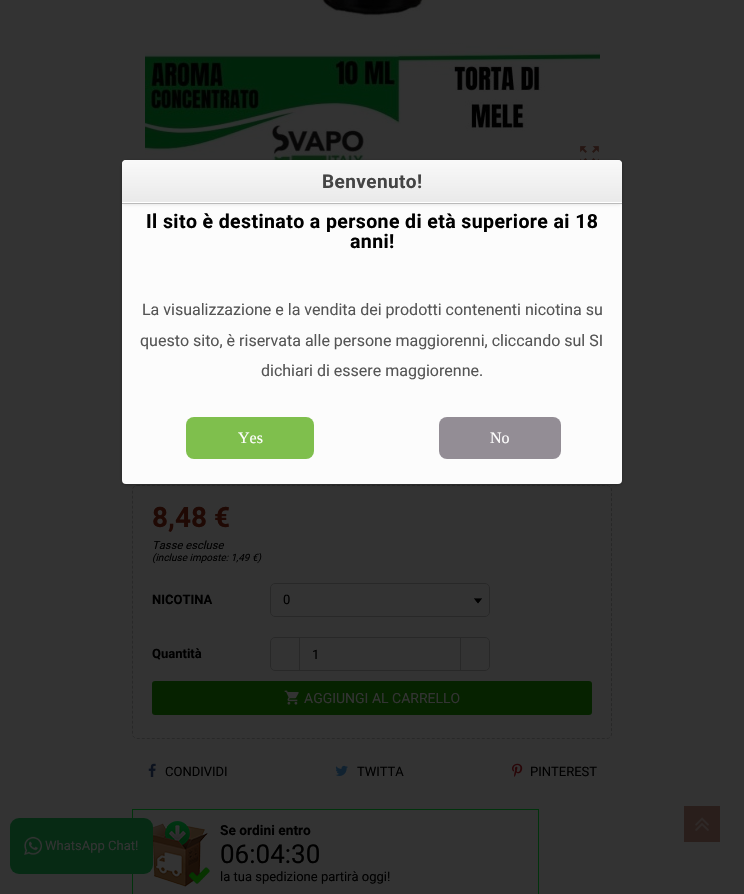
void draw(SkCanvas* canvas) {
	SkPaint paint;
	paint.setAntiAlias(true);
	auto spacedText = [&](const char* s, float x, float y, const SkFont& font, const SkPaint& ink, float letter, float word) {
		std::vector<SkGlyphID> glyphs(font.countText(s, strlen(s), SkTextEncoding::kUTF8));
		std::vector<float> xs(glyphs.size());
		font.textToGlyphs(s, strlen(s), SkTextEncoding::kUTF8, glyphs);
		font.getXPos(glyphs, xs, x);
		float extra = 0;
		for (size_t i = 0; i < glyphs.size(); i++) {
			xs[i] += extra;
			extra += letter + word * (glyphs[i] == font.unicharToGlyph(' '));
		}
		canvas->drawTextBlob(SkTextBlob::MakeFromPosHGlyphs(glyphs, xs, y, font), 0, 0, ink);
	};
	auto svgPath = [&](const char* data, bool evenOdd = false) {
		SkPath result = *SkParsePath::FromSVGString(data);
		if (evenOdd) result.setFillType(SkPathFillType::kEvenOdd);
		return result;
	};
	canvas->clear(0xff333333);
	canvas->drawImageRect(SkImages::DeferredFromEncodedData(SkData::MakeFromFileName("img1.png")), SkRect::MakeXYWH(145, 0, 455, 160), SkSamplingOptions());
	canvas->drawImageRect(SkImages::DeferredFromEncodedData(SkData::MakeFromFileName("img2.png")), SkRect::MakeXYWH(580, 146, 19, 14), SkSamplingOptions());
	paint.setStroke(true);
	paint.setStrokeWidth(1);
	paint.setColor(0xff282828);
	paint.setPathEffect(SkDashPathEffect::Make({{3, 2}}, 0));
	canvas->drawPath(svgPath("M137 485.5H607C609.5 485.5 611.5 487.5 611.5 490V734C611.5 736.5 609.5 738.5 607 738.5H137C134.5 738.5 132.5 736.5 132.5 734V490C132.5 487.5 134.5 485.5 137 485.5Z"), paint);
	paint.setPathEffect(nullptr);
	paint.setStroke(false);
	paint.setColor(0x40000000);
	paint.setMaskFilter(SkMaskFilter::MakeBlur(kNormal_SkBlurStyle, 1.5));
	canvas->drawRoundRect(SkRect::MakeXYWH(122, 161, 500, 324), 4, 4, paint);
	paint.setMaskFilter(nullptr);
	paint.setColor(0xfffcfcfc);
	canvas->drawRoundRect(SkRect::MakeXYWH(122, 160, 500, 324), 4, 4, paint);
	paint.setColor(0x14000000);
	paint.setMaskFilter(SkMaskFilter::MakeBlur(kNormal_SkBlurStyle, 1.5));
	canvas->drawRoundRect(SkRect::MakeXYWH(122, 161, 500, 44), 4, 4, paint);
	paint.setMaskFilter(nullptr);
	{
		const SkColor colors[] = {0xfff9f9f9, 0xffe9e9e9};
		const float stops[] = {0, 1};
		const SkPoint ends[] = {{372, 160}, {372, 203}};
		paint.setShader(SkGradientShader::MakeLinear(ends, colors, stops, 2, SkTileMode::kClamp));
		paint.setAlpha(255);
	}
	canvas->drawPath(svgPath("M126 160H618C620 160 622 162 622 164V203H122V164C122 162 124 160 126 160Z"), paint);
	paint.setShader(nullptr);
	paint.setColor(0xffffffff);
	canvas->drawRect(SkRect::MakeXYWH(122, 202, 500, 1), paint);
	paint.setColor(0xffbababa);
	canvas->drawRect(SkRect::MakeXYWH(122, 203, 500, 1), paint);
	SkFont f1(fontMgr->matchFamilyStyle("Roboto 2", SkFontStyle::Bold()), 19);
	f1.setSubpixel(true);
	paint.setColor(0xff444444);
	spacedText("Benvenuto!", 322, 188, f1, paint, 0.4, 0);
	SkFont f2(fontMgr->matchFamilyStyle("Roboto 2", SkFontStyle::Bold()), 19.5);
	f2.setSubpixel(true);
	paint.setColor(0xff000000);
	spacedText("Il sito è destinato a persone di età superiore ai 18", 146, 228, f2, paint, 0.4, 0);
	spacedText("anni!", 350, 248, f2, paint, 0.4, 0);
	SkFont f3(fontMgr->matchFamilyStyle("Roboto", SkFontStyle::Normal()), 16);
	f3.setSubpixel(true);
	paint.setColor(0xff555555);
	canvas->drawString("La visualizzazione e la vendita dei prodotti contenenti nicotina su", 142, 315, f3, paint);
	canvas->drawString("questo sito, è riservata alle persone maggiorenni, cliccando sul SI", 140, 346, f3, paint);
	canvas->drawString("dichiari di essere maggiorenne.", 261, 376, f3, paint);
	paint.setColor(0xff7fbf4d);
	canvas->drawRoundRect(SkRect::MakeXYWH(186, 417, 128, 42), 8, 8, paint);
	SkFont f4(fontMgr->matchFamilyStyle("Liberation Serif", SkFontStyle::Normal()), 16);
	f4.setSubpixel(true);
	paint.setColor(0xffffffff);
	canvas->drawString("Yes", 238, 443, f4, paint);
	paint.setColor(0xff938d95);
	canvas->drawRoundRect(SkRect::MakeXYWH(439, 417, 122, 42), 8, 8, paint);
	paint.setColor(0xffffffff);
	canvas->drawString("No", 490, 443, f4, paint);
	SkFont f5(fontMgr->matchFamilyStyle("Roboto", SkFontStyle::Bold()), 28);
	f5.setSubpixel(true);
	paint.setColor(0xff1f0904);
	canvas->drawString("8,48 €", 152, 527, f5, paint);
	SkFont f6(fontMgr->matchFamilyStyle("Roboto", SkFontStyle::Italic()), 11.25);
	f6.setSubpixel(true);
	paint.setColor(0xff000000);
	canvas->drawString("Tasse escluse", 152, 549, f6, paint);
	SkFont f7(fontMgr->matchFamilyStyle("Roboto", SkFontStyle::Italic()), 10);
	f7.setSubpixel(true);
	canvas->drawString("(incluse imposte: 1,49 €)", 152, 561, f7, paint);
	SkFont f8(fontMgr->matchFamilyStyle("Roboto", SkFontStyle::Bold()), 13);
	f8.setSubpixel(true);
	canvas->drawString("NICOTINA", 152, 604, f8, paint);
	canvas->drawImageRect(SkImages::DeferredFromEncodedData(SkData::MakeFromFileName("img3.png")), SkRect::MakeXYWH(474, 598, 8, 6), SkSamplingOptions());
	paint.setStroke(true);
	paint.setColor(0xff282828);
	canvas->drawRoundRect(SkRect::MakeXYWH(270.5, 583.5, 219, 33), 4.5, 4.5, paint);
	SkFont f9(fontMgr->matchFamilyStyle("Roboto", SkFontStyle::Normal()), 13);
	f9.setSubpixel(true);
	paint.setStroke(false);
	paint.setColor(0xff000000);
	canvas->drawString("0", 283, 604, f9, paint);
	canvas->drawString("Quantità", 152, 658, f8, paint);
	paint.setStroke(true);
	paint.setColor(0xff282828);
	canvas->drawPath(svgPath("M275 637.5H299.5V670.5H275C272.5 670.5 270.5 668.5 270.5 666V642C270.5 639.5 272.5 637.5 275 637.5Z"), paint);
	canvas->drawPath(svgPath("M460.5 637.5H485C487.5 637.5 489.5 639.5 489.5 642V666C489.5 668.5 487.5 670.5 485 670.5H460.5Z"), paint);
	canvas->drawRect(SkRect::MakeXYWH(299.5, 637.5, 161, 33), paint);
	paint.setStroke(false);
	paint.setColor(0xff000000);
	canvas->drawString("1", 312, 659, f9, paint);
	paint.setColor(0xff062200);
	canvas->drawRoundRect(SkRect::MakeXYWH(152, 681, 440, 34), 3, 3, paint);
	canvas->drawImageRect(SkImages::DeferredFromEncodedData(SkData::MakeFromFileName("img4.png")), SkRect::MakeXYWH(284, 690, 15, 15), SkSamplingOptions());
	SkFont f10(fontMgr->matchFamilyStyle("Roboto", SkFontStyle::Normal()), 14);
	f10.setSubpixel(true);
	paint.setColor(0xff333333);
	canvas->drawString("AGGIUNGI AL CARRELLO", 304, 703, f10, paint);
	canvas->drawImageRect(SkImages::DeferredFromEncodedData(SkData::MakeFromFileName("img5.png")), SkRect::MakeXYWH(148, 763, 8, 14), SkSamplingOptions());
	paint.setColor(0xff000000);
	canvas->drawString("CONDIVIDI", 165, 776, f9, paint);
	canvas->drawImageRect(SkImages::DeferredFromEncodedData(SkData::MakeFromFileName("img6.png")), SkRect::MakeXYWH(335, 765, 13, 11), SkSamplingOptions());
	canvas->drawString("TWITTA", 357, 776, f9, paint);
	canvas->drawImageRect(SkImages::DeferredFromEncodedData(SkData::MakeFromFileName("img7.png")), SkRect::MakeXYWH(512, 763, 11, 14), SkSamplingOptions());
	canvas->drawString("PINTEREST", 530, 776, f9, paint);
	paint.setStroke(true);
	paint.setColor(0xff01330c);
	canvas->drawRect(SkRect::MakeXYWH(132.5, 809.5, 406, 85), paint);
	canvas->drawImageRect(SkImages::DeferredFromEncodedData(SkData::MakeFromFileName("img8.png")), SkRect::MakeXYWH(153, 821, 57, 66), SkSamplingOptions());
	SkFont f11(fontMgr->matchFamilyStyle("Roboto", SkFontStyle::Bold()), 13.75);
	f11.setSubpixel(true);
	paint.setStroke(false);
	paint.setColor(0xff000000);
	canvas->drawString("Se ordini entro", 220, 835, f11, paint);
	SkFont f12(fontMgr->matchFamilyStyle("Roboto", SkFontStyle::Normal()), 26);
	f12.setSubpixel(true);
	canvas->drawString("06:04:30", 220, 863, f12, paint);
	canvas->drawString("la tua spedizione partirà oggi!", 220, 881, f9, paint);
	paint.setColor(0xff291e1b);
	canvas->drawRect(SkRect::MakeXYWH(684, 806, 36, 36), paint);
	canvas->drawImageRect(SkImages::DeferredFromEncodedData(SkData::MakeFromFileName("img9.png")), SkRect::MakeXYWH(695, 817, 14, 14), SkSamplingOptions());
	paint.setColor(0xff072a14);
	canvas->drawRoundRect(SkRect::MakeXYWH(10, 818, 143, 56), 9, 9, paint);
	canvas->drawImageRect(SkImages::DeferredFromEncodedData(SkData::MakeFromFileName("img10.png")), SkRect::MakeXYWH(24, 836, 18, 19), SkSamplingOptions());
	paint.setColor(0xff333333);
	canvas->drawString("WhatsApp Chat!", 45, 850, f9, paint);
}
